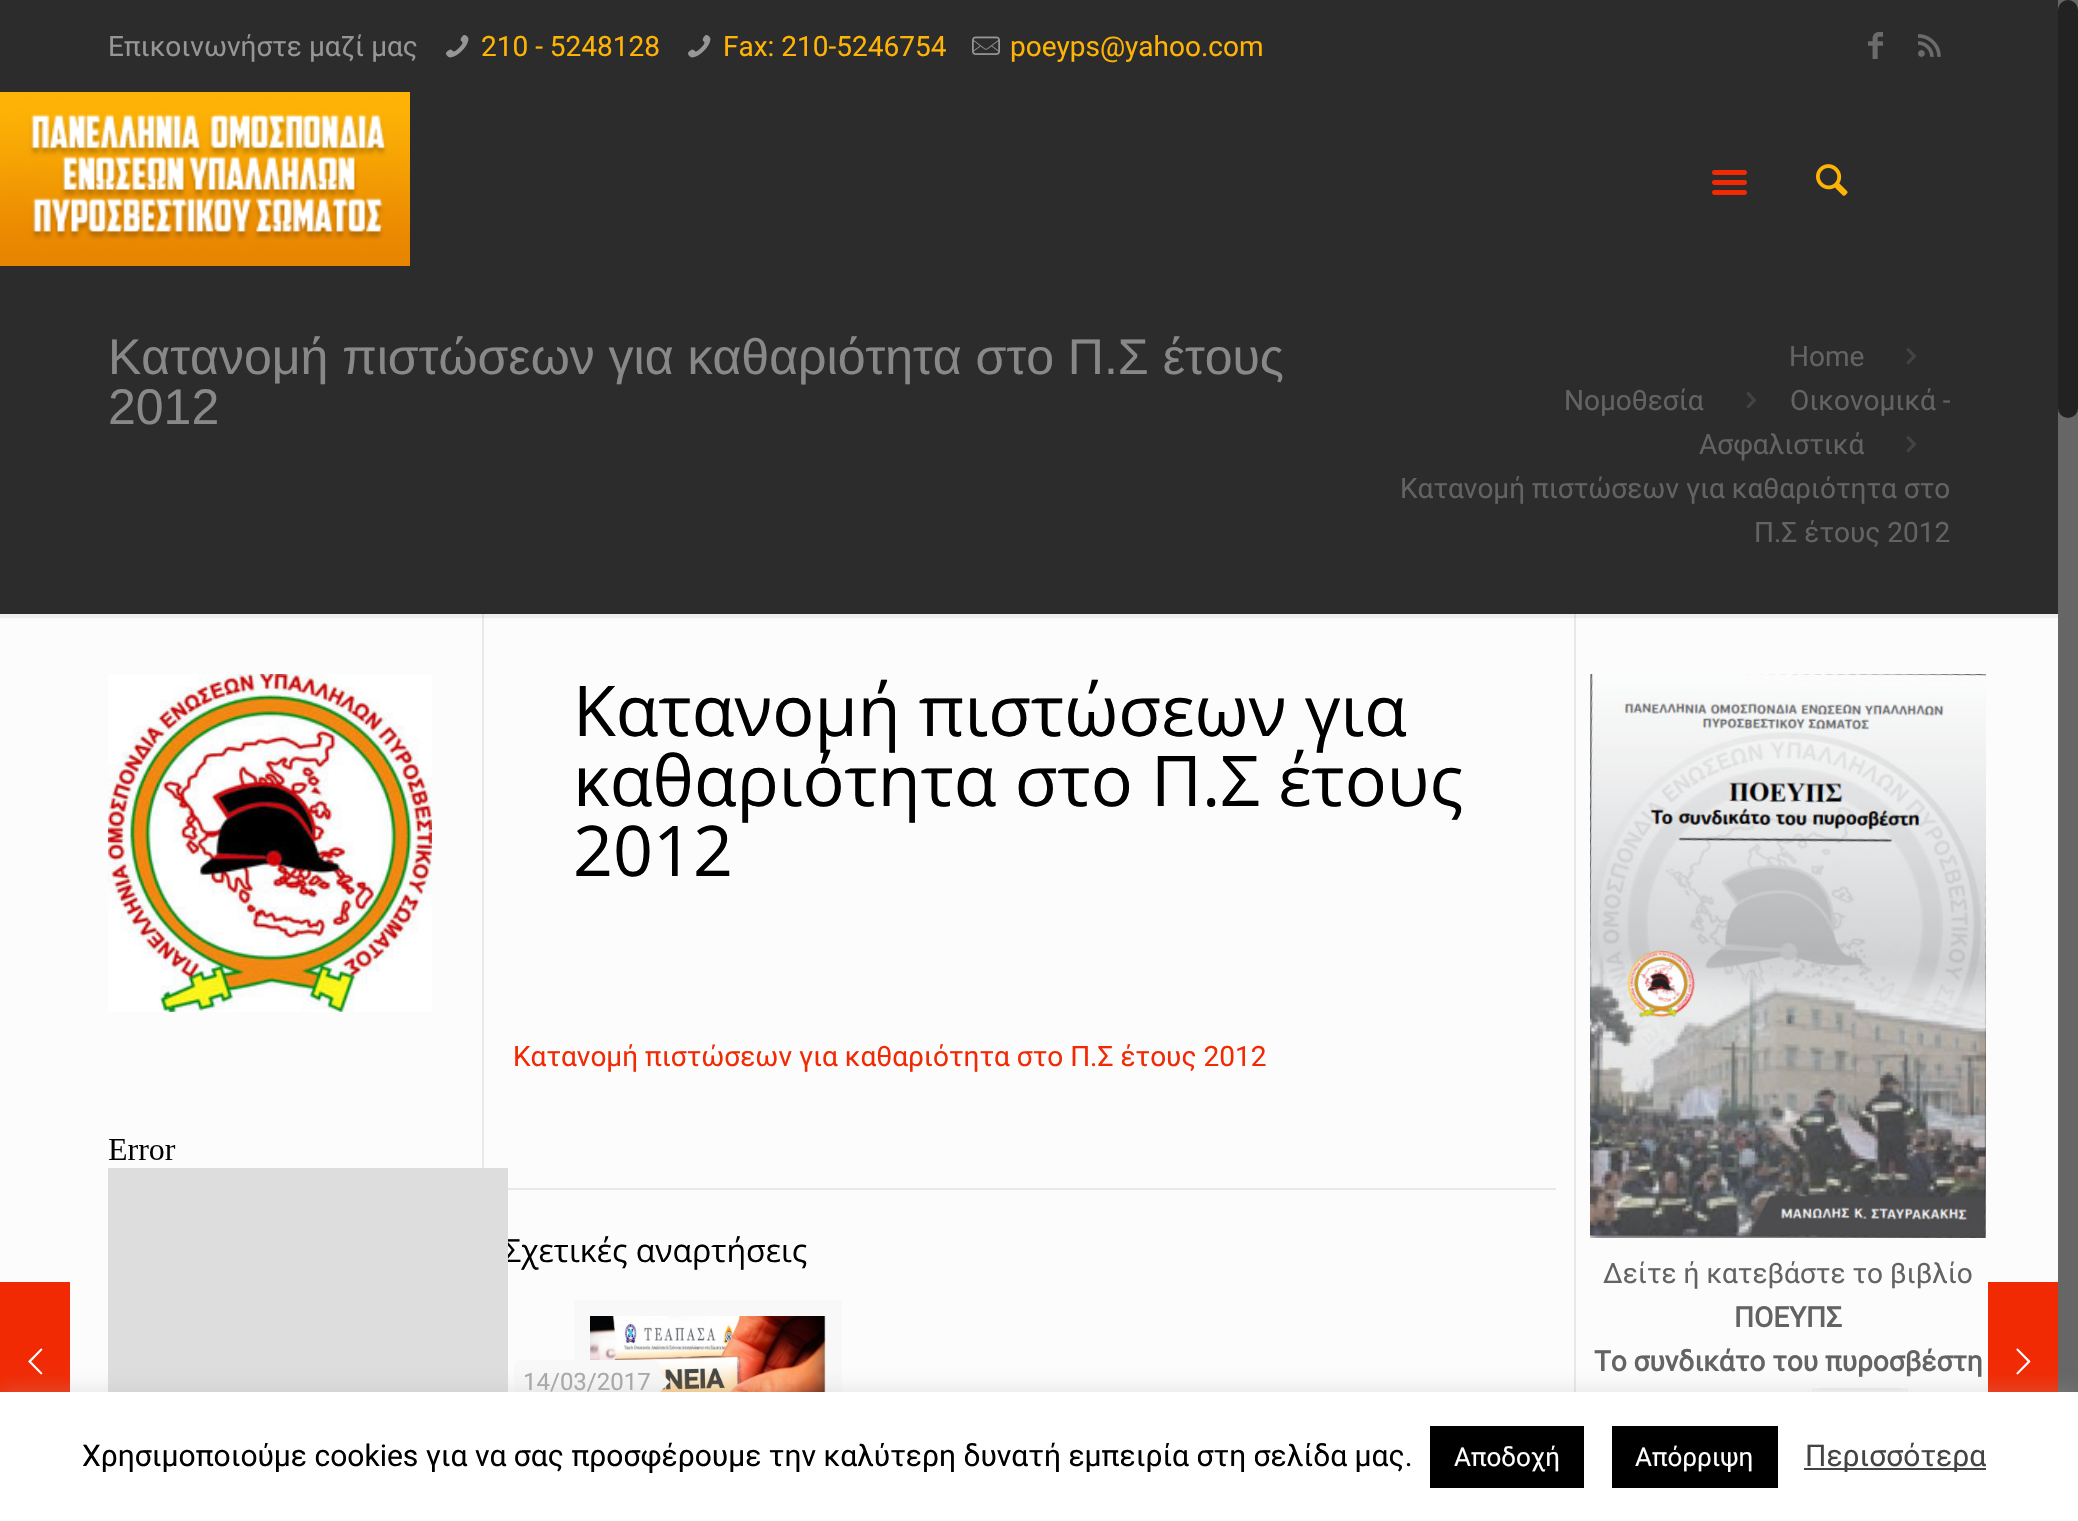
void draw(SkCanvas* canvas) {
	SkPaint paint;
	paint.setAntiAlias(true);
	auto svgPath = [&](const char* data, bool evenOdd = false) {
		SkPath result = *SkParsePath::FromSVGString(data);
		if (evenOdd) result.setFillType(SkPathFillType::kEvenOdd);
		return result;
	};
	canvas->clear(0xfffcfcfc);
	paint.setColor(0xfff12a04);
	canvas->drawRect(SkRect::MakeXYWH(0, 1282, 70, 110), paint);
	canvas->drawImageRect(SkImages::DeferredFromEncodedData(SkData::MakeFromFileName("img1.png")), SkRect::MakeXYWH(28, 1348, 15, 27), SkSamplingOptions());
	paint.setColor(0xff2c2c2c);
	canvas->drawRect(SkRect::MakeXYWH(0, 0, 2058, 614), paint);
	SkFont f1(fontMgr->matchFamilyStyle("Roboto", SkFontStyle::Normal()), 28);
	f1.setSubpixel(true);
	paint.setColor(0xff969696);
	canvas->drawString("Επικοινωνήστε μαζί μας", 108, 56, f1, paint);
	canvas->drawImageRect(SkImages::DeferredFromEncodedData(SkData::MakeFromFileName("img2.png")), SkRect::MakeXYWH(446, 35, 23, 23), SkSamplingOptions());
	paint.setColor(0xfffeb406);
	canvas->drawString("210 - 5248128", 481, 56, f1, paint);
	canvas->drawImageRect(SkImages::DeferredFromEncodedData(SkData::MakeFromFileName("img2.png")), SkRect::MakeXYWH(688, 35, 23, 23), SkSamplingOptions());
	canvas->drawString("Fax: 210-5246754", 723, 56, f1, paint);
	canvas->drawImageRect(SkImages::DeferredFromEncodedData(SkData::MakeFromFileName("img3.png")), SkRect::MakeXYWH(972, 36, 28, 19), SkSamplingOptions());
	canvas->drawString("poeyps@yahoo.com", 1010, 56, f1, paint);
	canvas->drawImageRect(SkImages::DeferredFromEncodedData(SkData::MakeFromFileName("img4.png")), SkRect::MakeXYWH(1868, 32, 15, 27), SkSamplingOptions());
	canvas->drawImageRect(SkImages::DeferredFromEncodedData(SkData::MakeFromFileName("img5.png")), SkRect::MakeXYWH(1918, 34, 23, 23), SkSamplingOptions());
	canvas->drawImageRect(SkImages::DeferredFromEncodedData(SkData::MakeFromFileName("img6.png")), SkRect::MakeXYWH(0, 92, 410, 174), SkSamplingOptions());
	canvas->drawImageRect(SkImages::DeferredFromEncodedData(SkData::MakeFromFileName("img7.png")), SkRect::MakeXYWH(1712, 170, 35, 25), SkSamplingOptions());
	canvas->drawImageRect(SkImages::DeferredFromEncodedData(SkData::MakeFromFileName("img8.png")), SkRect::MakeXYWH(1816, 164, 32, 32), SkSamplingOptions());
	SkFont f2(fontMgr->matchFamilyStyle("Liberation Sans", SkFontStyle::Normal()), 50);
	f2.setSubpixel(true);
	paint.setColor(0xff888888);
	canvas->drawString("Κατανομή πιστώσεων για καθαριότητα στο Π.Σ έτους", 108, 374, f2, paint);
	canvas->drawString("2012", 108, 424, f2, paint);
	paint.setColor(0xff636363);
	canvas->drawString("Home", 1789, 366, f1, paint);
	canvas->drawImageRect(SkImages::DeferredFromEncodedData(SkData::MakeFromFileName("img9.png")), SkRect::MakeXYWH(1906, 348, 10, 17), SkSamplingOptions());
	canvas->drawString("Νομοθεσία", 1564, 410, f1, paint);
	canvas->drawImageRect(SkImages::DeferredFromEncodedData(SkData::MakeFromFileName("img9.png")), SkRect::MakeXYWH(1746, 392, 10, 17), SkSamplingOptions());
	canvas->drawString("Οικονομικά -", 1790, 410, f1, paint);
	canvas->drawString("Ασφαλιστικά", 1699, 454, f1, paint);
	canvas->drawImageRect(SkImages::DeferredFromEncodedData(SkData::MakeFromFileName("img9.png")), SkRect::MakeXYWH(1906, 436, 10, 17), SkSamplingOptions());
	canvas->drawString("Κατανομή πιστώσεων για καθαριότητα στο", 1400, 498, f1, paint);
	canvas->drawString("Π.Σ έτους 2012", 1754, 542, f1, paint);
	paint.setColor(0xffe8e8e8);
	canvas->drawRect(SkRect::MakeXYWH(482, 614, 2, 554), paint);
	canvas->drawRect(SkRect::MakeXYWH(1574, 614, 2, 778), paint);
	paint.setColor(0x0d000000);
	canvas->drawRect(SkRect::MakeXYWH(0, 614, 2058, 4), paint);
	canvas->drawImageRect(SkImages::DeferredFromEncodedData(SkData::MakeFromFileName("img10.png")), SkRect::MakeXYWH(108, 674, 324, 338), SkSamplingOptions());
	paint.setColor(0xffe8e8e8);
	canvas->drawRect(SkRect::MakeXYWH(502, 1188, 1054, 2), paint);
	SkFont f3(fontMgr->matchFamilyStyle("Open Sans", SkFontStyle::Normal()), 32);
	f3.setSubpixel(true);
	paint.setColor(0xff000000);
	canvas->drawString("Σχετικές αναρτήσεις", 503, 1262, f3, paint);
	canvas->drawImageRect(SkImages::DeferredFromEncodedData(SkData::MakeFromFileName("img11.png")), SkRect::MakeXYWH(108, 1139, 400, 253), SkSamplingOptions());
	SkFont f4(fontMgr->matchFamilyStyle("Open Sans", SkFontStyle::Normal()), 70);
	f4.setSubpixel(true);
	canvas->drawString("Κατανομή πιστώσεων για", 573, 736, f4, paint);
	canvas->drawString("καθαριότητα στο Π.Σ έτους", 573, 806, f4, paint);
	canvas->drawString("2012", 573, 876, f4, paint);
	paint.setColor(0xfff12a04);
	canvas->drawString("Κατανομή πιστώσεων για καθαριότητα στο Π.Σ έτους 2012", 513, 1066, f1, paint);
	paint.setStroke(true);
	paint.setStrokeWidth(16);
	paint.setColor(0xfff8f8f8);
	canvas->drawRect(SkRect::MakeXYWH(582, 1308, 252, 102), paint);
	canvas->drawImageRect(SkImages::DeferredFromEncodedData(SkData::MakeFromFileName("img12.png")), SkRect::MakeXYWH(590, 1316, 236, 76), SkSamplingOptions());
	paint.setStroke(false);
	canvas->drawRoundRect(SkRect::MakeXYWH(514, 1360, 146, 44), 8, 8, paint);
	SkFont f5(fontMgr->matchFamilyStyle("Roboto", SkFontStyle::Normal()), 24);
	f5.setSubpixel(true);
	paint.setColor(0xffa8a8a8);
	canvas->drawString("14/03/2017", 523, 1390, f5, paint);
	paint.setColor(0xfff8f8f8);
	canvas->drawPath(svgPath("M660 1392V1372L670 1382Z"), paint);
	canvas->drawImageRect(SkImages::DeferredFromEncodedData(SkData::MakeFromFileName("img13.png")), SkRect::MakeXYWH(1590, 674, 396, 564), SkSamplingOptions());
	paint.setColor(0xff636363);
	canvas->drawString("Δείτε ή κατεβάστε το βιβλίο", 1603, 1283, f1, paint);
	SkFont f6(fontMgr->matchFamilyStyle("Roboto", SkFontStyle::Bold()), 28);
	f6.setSubpixel(true);
	canvas->drawString("ΠΟΕΥΠΣ", 1734, 1327, f6, paint);
	canvas->drawString("Το συνδικάτο του πυροσβέστη", 1594, 1371, f6, paint);
	paint.setColor(0xfff7f7f7);
	canvas->drawRoundRect(SkRect::MakeXYWH(1812, 1388, 96, 92), 10, 10, paint);
	paint.setStroke(true);
	paint.setStrokeWidth(2);
	paint.setColor(0x08000000);
	canvas->drawRect(SkRect::MakeXYWH(1813, 1389, 94, 90), paint);
	paint.setStroke(false);
	paint.setColor(0xfff12a04);
	canvas->drawRect(SkRect::MakeXYWH(1988, 1282, 70, 110), paint);
	canvas->drawImageRect(SkImages::DeferredFromEncodedData(SkData::MakeFromFileName("img14.png")), SkRect::MakeXYWH(2016, 1348, 15, 27), SkSamplingOptions());
	paint.setColor(0xff666666);
	canvas->drawRect(SkRect::MakeXYWH(2058, 0, 20, 1392), paint);
	paint.setColor(0xff222222);
	canvas->drawRoundRect(SkRect::MakeXYWH(2058, 0, 20, 418), 10, 10, paint);
	paint.setColor(0x4dacabab);
	paint.setMaskFilter(SkMaskFilter::MakeBlur(kNormal_SkBlurStyle, 10));
	canvas->drawRect(SkRect::MakeXYWH(0, 1390, 2078, 130), paint);
	paint.setMaskFilter(nullptr);
	paint.setColor(0xffffffff);
	canvas->drawRect(SkRect::MakeXYWH(0, 1392, 2078, 129), paint);
	SkFont f7(fontMgr->matchFamilyStyle("Roboto", SkFontStyle::Normal()), 30);
	f7.setSubpixel(true);
	paint.setColor(0xff000000);
	canvas->drawString("Χρησιμοποιούμε cookies για να σας προσφέρουμε την καλύτερη δυνατή εμπειρία στη σελίδα μας.", 82, 1466, f7, paint);
	canvas->drawRect(SkRect::MakeXYWH(1430, 1426, 154, 62), paint);
	SkFont f8(fontMgr->matchFamilyStyle("Roboto", SkFontStyle::Normal()), 26);
	f8.setSubpixel(true);
	paint.setColor(0xffffffff);
	canvas->drawString("Αποδοχή", 1454, 1466, f8, paint);
	paint.setColor(0xff000000);
	canvas->drawRect(SkRect::MakeXYWH(1612, 1426, 166, 62), paint);
	paint.setColor(0xffffffff);
	canvas->drawString("Απόρριψη", 1635, 1466, f8, paint);
	paint.setColor(0xff444444);
	canvas->drawRect(SkRect::MakeXYWH(1804, 1468, 182, 2), paint);
	canvas->drawString("Περισσότερα", 1805, 1466, f7, paint);
}
